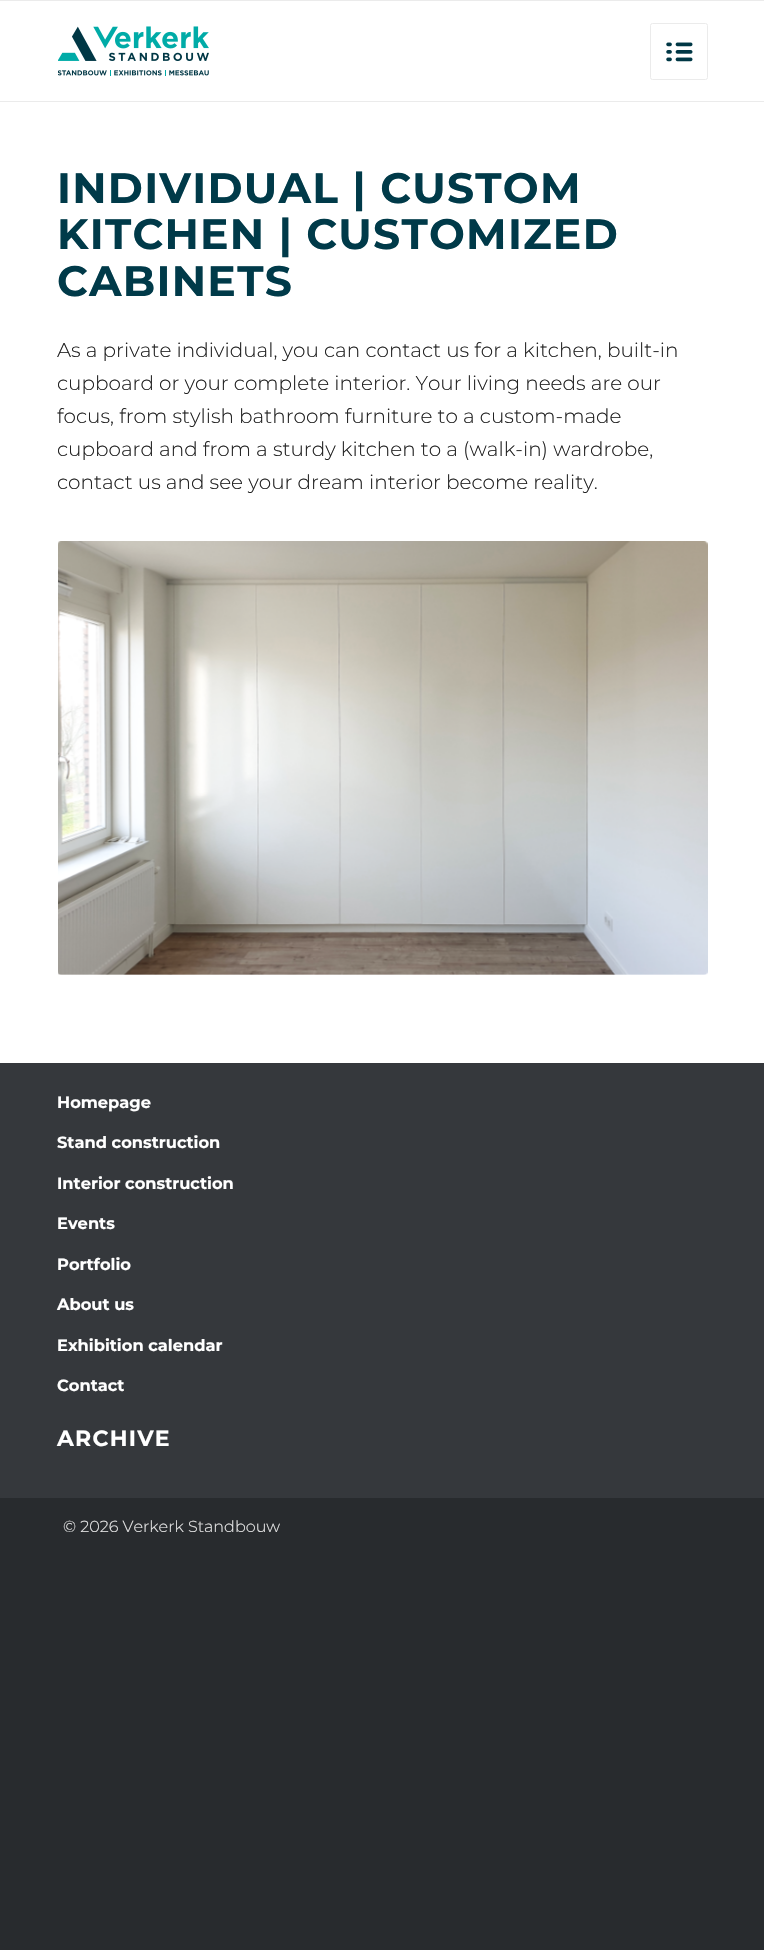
void draw(SkCanvas* canvas) {
	SkPaint paint;
	paint.setAntiAlias(true);
	auto spacedText = [&](const char* s, float x, float y, const SkFont& font, const SkPaint& ink, float letter, float word) {
		std::vector<SkGlyphID> glyphs(font.countText(s, strlen(s), SkTextEncoding::kUTF8));
		std::vector<float> xs(glyphs.size());
		font.textToGlyphs(s, strlen(s), SkTextEncoding::kUTF8, glyphs);
		font.getXPos(glyphs, xs, x);
		float extra = 0;
		for (size_t i = 0; i < glyphs.size(); i++) {
			xs[i] += extra;
			extra += letter + word * (glyphs[i] == font.unicharToGlyph(' '));
		}
		canvas->drawTextBlob(SkTextBlob::MakeFromPosHGlyphs(glyphs, xs, y, font), 0, 0, ink);
	};
	canvas->clear(0xff282b2e);
	paint.setColor(0xffebebeb);
	canvas->drawRect(SkRect::MakeXYWH(0, 0, 764, 1), paint);
	paint.setColor(0xffffffff);
	canvas->drawRect(SkRect::MakeXYWH(0, 1, 764, 1062), paint);
	paint.setColor(0xffebebeb);
	canvas->drawRect(SkRect::MakeXYWH(0, 101, 764, 1), paint);
	canvas->drawImageRect(SkImages::DeferredFromEncodedData(SkData::MakeFromFileName("img1.png")), SkRect::MakeXYWH(58, 26, 151, 50), SkSamplingOptions());
	paint.setStroke(true);
	paint.setStrokeWidth(1);
	canvas->drawRoundRect(SkRect::MakeXYWH(650.5, 23.5, 57, 56), 2, 2, paint);
	canvas->drawImageRect(SkImages::DeferredFromEncodedData(SkData::MakeFromFileName("img2.png")), SkRect::MakeXYWH(666, 42, 27, 20), SkSamplingOptions());
	SkFont f1(fontMgr->matchFamilyStyle("Montserrat", SkFontStyle::Bold()), 42.5);
	f1.setSubpixel(true);
	paint.setStroke(false);
	paint.setColor(0xff003a49);
	spacedText("INDIVIDUAL | CUSTOM", 57, 203, f1, paint, 1.25, 0);
	spacedText("KITCHEN | CUSTOMIZED", 57, 249, f1, paint, 1.25, 0);
	spacedText("CABINETS", 57, 296, f1, paint, 1.25, 0);
	SkFont f2(fontMgr->matchFamilyStyle("Montserrat", SkFontStyle(300, SkFontStyle::kNormal_Width, SkFontStyle::kUpright_Slant)), 20);
	f2.setSubpixel(true);
	paint.setColor(0xff222222);
	canvas->drawString("As a private individual, you can contact us for a kitchen, built-in", 57, 357, f2, paint);
	canvas->drawString("cupboard or your complete interior. Your living needs are our", 57, 390, f2, paint);
	canvas->drawString("focus, from stylish bathroom furniture to a custom-made", 57, 423, f2, paint);
	canvas->drawString("cupboard and from a sturdy kitchen to a (walk-in) wardrobe,", 57, 456, f2, paint);
	canvas->drawString("contact us and see your dream interior become reality.", 57, 489, f2, paint);
	canvas->drawImageRect(SkImages::DeferredFromEncodedData(SkData::MakeFromFileName("img3.png")), SkRect::MakeXYWH(58, 541, 650, 434), SkSamplingOptions());
	paint.setColor(0xff35383c);
	canvas->drawRect(SkRect::MakeXYWH(0, 1063, 764, 435), paint);
	SkFont f3(fontMgr->matchFamilyStyle("Montserrat", SkFontStyle::Bold()), 16.25);
	f3.setSubpixel(true);
	paint.setColor(0xffffffff);
	canvas->drawString("Homepage", 57, 1108, f3, paint);
	canvas->drawString("Stand construction", 57, 1148, f3, paint);
	canvas->drawString("Interior construction", 57, 1189, f3, paint);
	canvas->drawString("Events", 57, 1229, f3, paint);
	canvas->drawString("Portfolio", 57, 1270, f3, paint);
	canvas->drawString("About us", 57, 1310, f3, paint);
	canvas->drawString("Exhibition calendar", 57, 1351, f3, paint);
	canvas->drawString("Contact", 57, 1391, f3, paint);
	SkFont f4(fontMgr->matchFamilyStyle("Montserrat", SkFontStyle::Bold()), 22);
	f4.setSubpixel(true);
	spacedText("ARCHIVE", 57, 1446, f4, paint, 1.25, 0);
	SkFont f5(fontMgr->matchFamilyStyle("Montserrat", SkFontStyle(300, SkFontStyle::kNormal_Width, SkFontStyle::kUpright_Slant)), 16);
	f5.setSubpixel(true);
	paint.setColor(0xffe8e8e8);
	canvas->drawString("© 2026 Verkerk Standbouw", 63, 1532, f5, paint);
}
